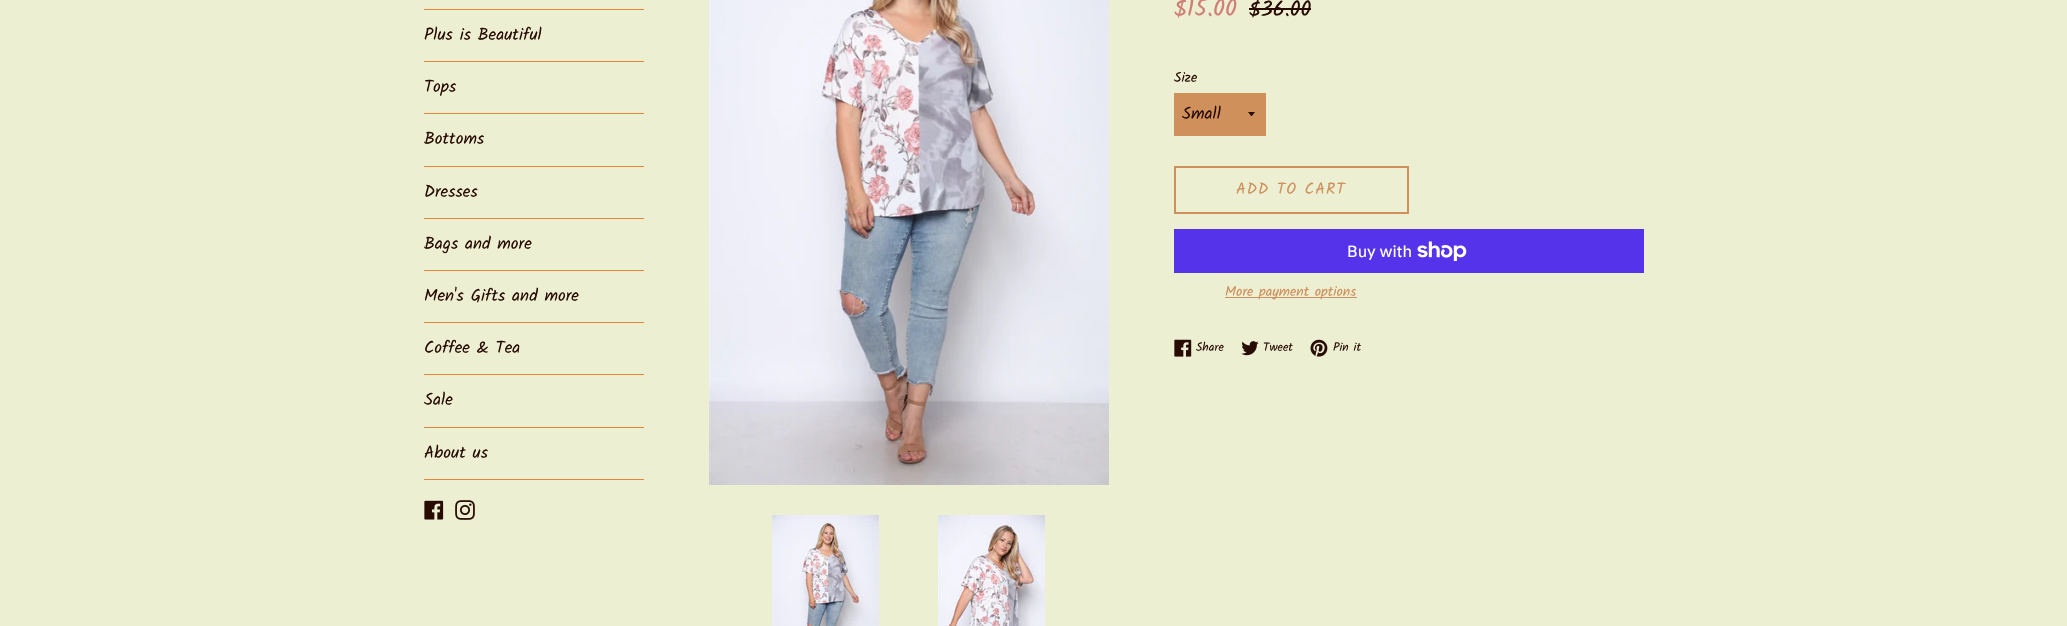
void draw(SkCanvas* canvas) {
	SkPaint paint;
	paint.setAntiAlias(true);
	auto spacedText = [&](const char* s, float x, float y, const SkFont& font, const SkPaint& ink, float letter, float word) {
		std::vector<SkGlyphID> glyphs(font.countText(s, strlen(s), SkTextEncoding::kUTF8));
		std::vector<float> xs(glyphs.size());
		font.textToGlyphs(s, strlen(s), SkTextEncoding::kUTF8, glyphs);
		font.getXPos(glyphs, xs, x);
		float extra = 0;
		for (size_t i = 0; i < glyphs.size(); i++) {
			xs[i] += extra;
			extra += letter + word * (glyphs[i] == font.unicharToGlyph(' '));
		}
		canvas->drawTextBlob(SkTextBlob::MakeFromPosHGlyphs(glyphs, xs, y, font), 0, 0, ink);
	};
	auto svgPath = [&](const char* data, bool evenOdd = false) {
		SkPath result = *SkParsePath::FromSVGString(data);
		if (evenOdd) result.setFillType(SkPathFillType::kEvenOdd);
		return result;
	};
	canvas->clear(0xffedefd3);
	paint.setColor(0xffea8335);
	canvas->drawRect(SkRect::MakeXYWH(424, 9, 220, 1), paint);
	canvas->drawRect(SkRect::MakeXYWH(424, 61, 220, 1), paint);
	SkFont f1(fontMgr->matchFamilyStyle("Kalam", SkFontStyle::Normal()), 17);
	f1.setSubpixel(true);
	paint.setColor(0xff280c02);
	canvas->drawString("Plus is Beautiful", 424, 40, f1, paint);
	paint.setColor(0xffea8335);
	canvas->drawRect(SkRect::MakeXYWH(424, 113, 220, 1), paint);
	paint.setColor(0xff280c02);
	canvas->drawString("Tops", 424, 92, f1, paint);
	paint.setColor(0xffea8335);
	canvas->drawRect(SkRect::MakeXYWH(424, 166, 220, 1), paint);
	paint.setColor(0xff280c02);
	canvas->drawString("Bottoms", 424, 144, f1, paint);
	paint.setColor(0xffea8335);
	canvas->drawRect(SkRect::MakeXYWH(424, 218, 220, 1), paint);
	paint.setColor(0xff280c02);
	canvas->drawString("Dresses", 424, 197, f1, paint);
	paint.setColor(0xffea8335);
	canvas->drawRect(SkRect::MakeXYWH(424, 270, 220, 1), paint);
	paint.setColor(0xff280c02);
	canvas->drawString("Bags and more", 424, 249, f1, paint);
	paint.setColor(0xffea8335);
	canvas->drawRect(SkRect::MakeXYWH(424, 322, 220, 1), paint);
	paint.setColor(0xff280c02);
	canvas->drawString("Men's Gifts and more", 424, 301, f1, paint);
	paint.setColor(0xffea8335);
	canvas->drawRect(SkRect::MakeXYWH(424, 374, 220, 1), paint);
	paint.setColor(0xff280c02);
	canvas->drawString("Coffee & Tea", 424, 353, f1, paint);
	paint.setColor(0xffea8335);
	canvas->drawRect(SkRect::MakeXYWH(424, 427, 220, 1), paint);
	paint.setColor(0xff280c02);
	canvas->drawString("Sale", 424, 405, f1, paint);
	paint.setColor(0xffea8335);
	canvas->drawRect(SkRect::MakeXYWH(424, 479, 220, 1), paint);
	paint.setColor(0xff280c02);
	canvas->drawString("About us", 424, 458, f1, paint);
	canvas->drawImageRect(SkImages::DeferredFromEncodedData(SkData::MakeFromFileName("img1.png")), SkRect::MakeXYWH(424, 500, 20, 20), SkSamplingOptions());
	canvas->drawImageRect(SkImages::DeferredFromEncodedData(SkData::MakeFromFileName("img2.png")), SkRect::MakeXYWH(455, 500, 20, 20), SkSamplingOptions());
	canvas->drawImageRect(SkImages::DeferredFromEncodedData(SkData::MakeFromFileName("img3.png")), SkRect::MakeXYWH(709, 0, 400, 485), SkSamplingOptions());
	canvas->drawImageRect(SkImages::DeferredFromEncodedData(SkData::MakeFromFileName("img4.png")), SkRect::MakeXYWH(772, 515, 107, 111), SkSamplingOptions());
	canvas->drawImageRect(SkImages::DeferredFromEncodedData(SkData::MakeFromFileName("img5.png")), SkRect::MakeXYWH(938, 515, 107, 111), SkSamplingOptions());
	SkFont f2(fontMgr->matchFamilyStyle("Kalam", SkFontStyle::Normal()), 24);
	f2.setSubpixel(true);
	paint.setColor(0xffd17e77);
	canvas->drawString("$15.00", 1174, 16, f2, paint);
	SkFont f3(fontMgr->matchFamilyStyle("Kalam", SkFontStyle::Normal()), 21.5);
	f3.setSubpixel(true);
	paint.setColor(0xff280c02);
	canvas->drawString("$36.00", 1249, 16, f3, paint);
	canvas->drawRect(SkRect::MakeXYWH(1249, 8, 62, 2), paint);
	SkFont f4(fontMgr->matchFamilyStyle("Kalam", SkFontStyle::Normal()), 14);
	f4.setSubpixel(true);
	canvas->drawString("Size", 1174, 82, f4, paint);
	paint.setColor(0xffcf905c);
	canvas->drawRect(SkRect::MakeXYWH(1174, 93, 92, 43), paint);
	paint.setColor(0xff280c02);
	canvas->drawPath(svgPath("M1248 112C1252.5 117.5 1250.5 117.5 1255 112Z"), paint);
	canvas->drawString("Small", 1182, 119, f1, paint);
	paint.setStroke(true);
	paint.setStrokeWidth(2);
	paint.setColor(0xffcf905c);
	canvas->drawRect(SkRect::MakeXYWH(1175, 167, 233, 46), paint);
	SkFont f5(fontMgr->matchFamilyStyle("Kalam", SkFontStyle::Normal()), 16);
	f5.setSubpixel(true);
	paint.setStroke(false);
	spacedText("ADD TO CART", 1236, 194, f5, paint, 1, 0);
	paint.setColor(0xff5433eb);
	canvas->drawRect(SkRect::MakeXYWH(1174, 229, 470, 44), paint);
	SkFont f6(fontMgr->matchFamilyStyle("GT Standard", SkFontStyle::Normal()), 16);
	f6.setSubpixel(true);
	paint.setColor(0xffffffff);
	canvas->drawString("Buy with", 1347, 257, f6, paint);
	canvas->drawImageRect(SkImages::DeferredFromEncodedData(SkData::MakeFromFileName("img6.png")), SkRect::MakeXYWH(1417, 241, 50, 20), SkSamplingOptions());
	paint.setColor(0xffcf905c);
	canvas->drawRect(SkRect::MakeXYWH(1225, 297, 132, 1), paint);
	canvas->drawString("More payment options", 1225, 296, f4, paint);
	canvas->drawImageRect(SkImages::DeferredFromEncodedData(SkData::MakeFromFileName("img7.png")), SkRect::MakeXYWH(1174, 339, 18, 18), SkSamplingOptions());
	SkFont f7(fontMgr->matchFamilyStyle("Kalam", SkFontStyle::Normal()), 12);
	f7.setSubpixel(true);
	paint.setColor(0xff280c02);
	canvas->drawString("Share", 1196, 351, f7, paint);
	canvas->drawImageRect(SkImages::DeferredFromEncodedData(SkData::MakeFromFileName("img8.png")), SkRect::MakeXYWH(1241, 341, 18, 15), SkSamplingOptions());
	canvas->drawString("Tweet", 1263, 351, f7, paint);
	canvas->drawImageRect(SkImages::DeferredFromEncodedData(SkData::MakeFromFileName("img9.png")), SkRect::MakeXYWH(1310, 339, 18, 18), SkSamplingOptions());
	canvas->drawString("Pin it", 1333, 351, f7, paint);
}
